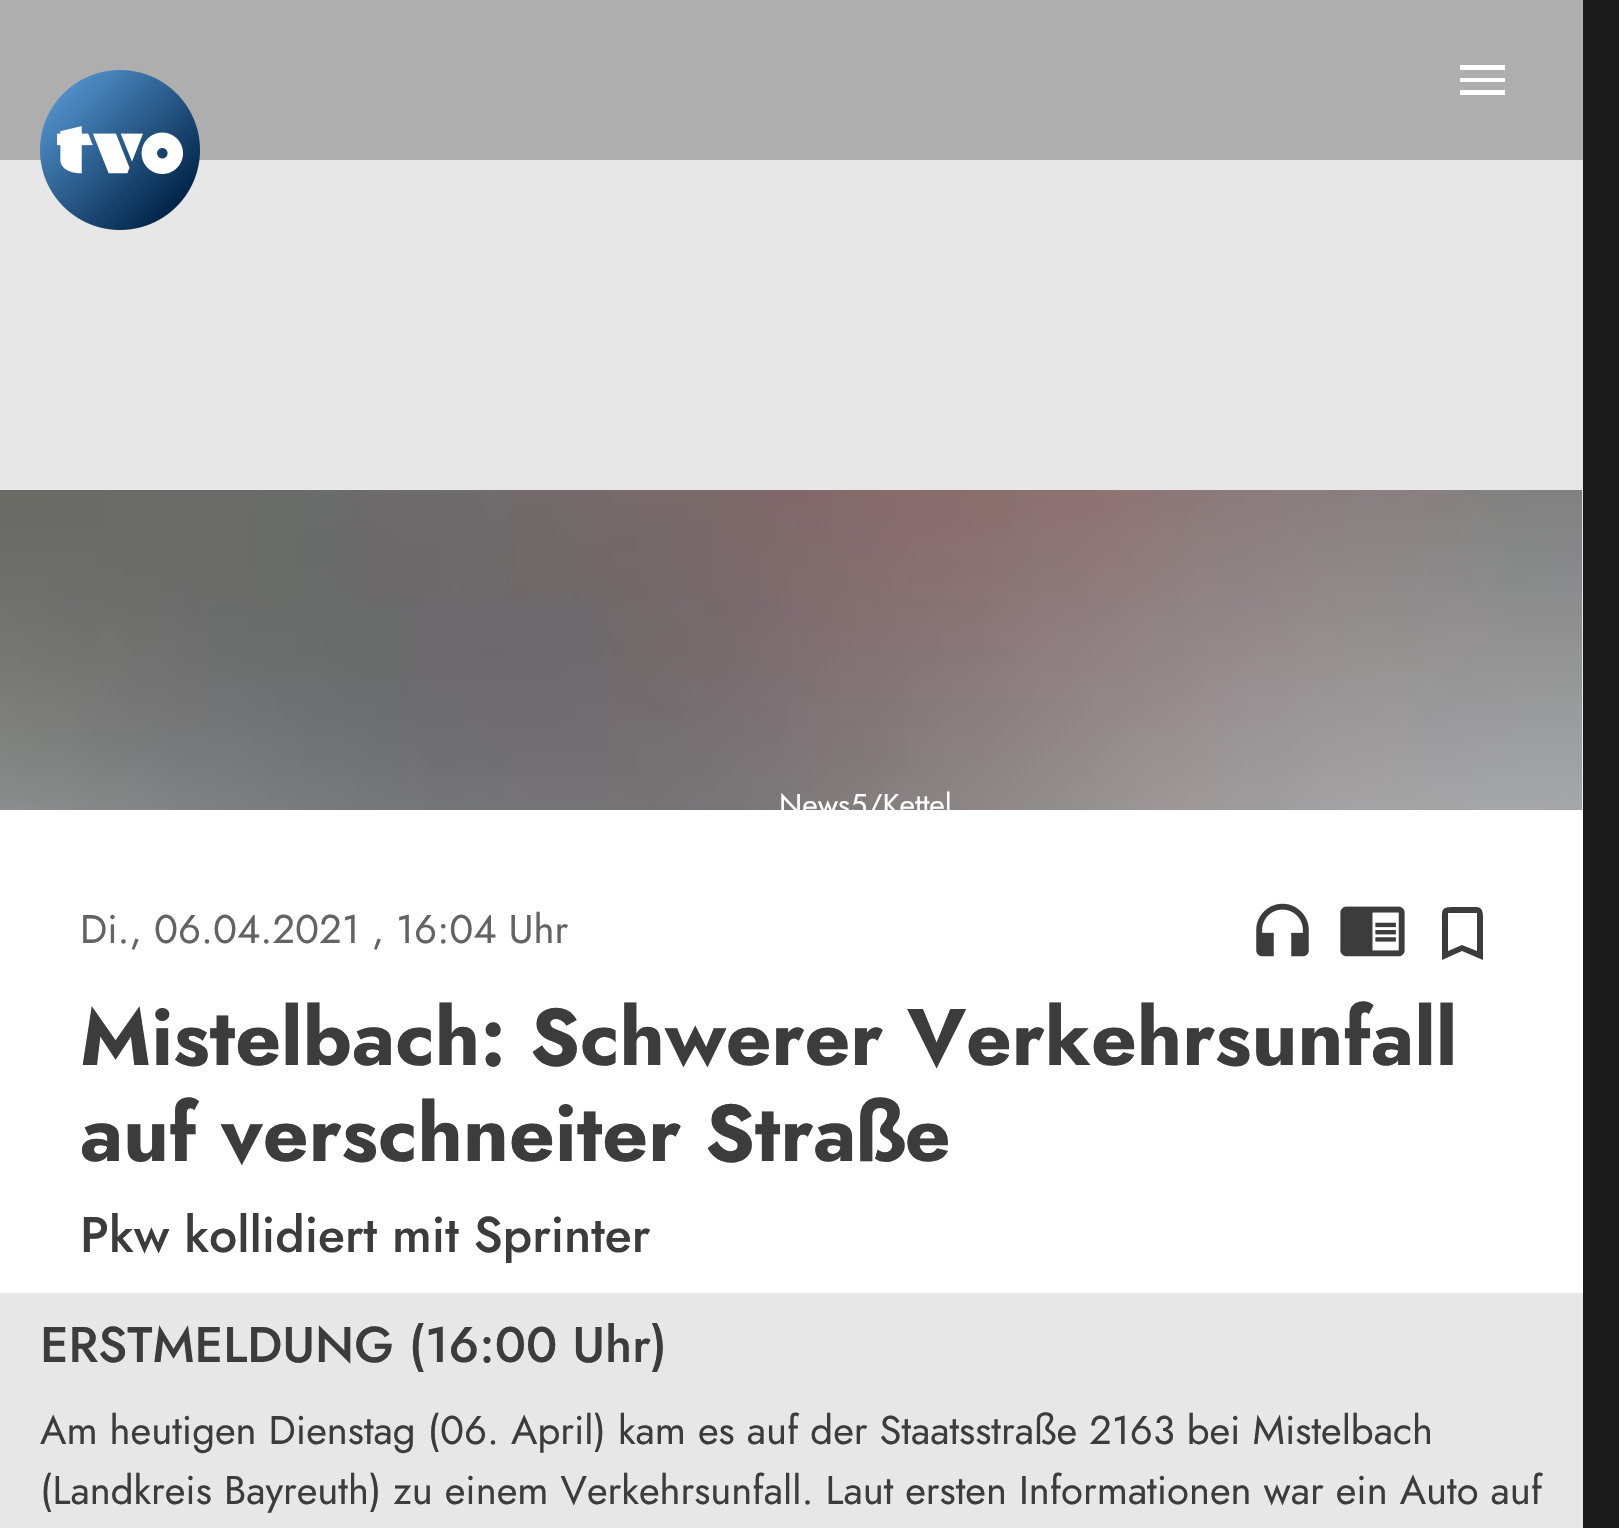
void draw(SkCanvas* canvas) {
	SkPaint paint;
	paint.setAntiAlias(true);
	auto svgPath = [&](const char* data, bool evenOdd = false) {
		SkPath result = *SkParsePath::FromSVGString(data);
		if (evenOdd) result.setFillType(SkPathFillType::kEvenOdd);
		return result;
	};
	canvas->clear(0xff1a1a1a);
	paint.setColor(0xffaeaeae);
	canvas->drawRect(SkRect::MakeXYWH(0, 0, 1583, 160), paint);
	paint.setColor(0xffe7e7e7);
	canvas->drawRect(SkRect::MakeXYWH(0, 160, 1583, 1368), paint);
	canvas->drawImageRect(SkImages::DeferredFromEncodedData(SkData::MakeFromFileName("img1.png")), SkRect::MakeXYWH(40, 70, 160, 160), SkSamplingOptions());
	paint.setColor(0xffffffff);
	canvas->drawPath(svgPath("M1460 65H1505V70H1460ZM1460 82V78H1505V82ZM1460 95V90H1505V95Z"), paint);
	canvas->drawRect(SkRect::MakeXYWH(1582, 490, 1, 320), paint);
	canvas->drawImageRect(SkImages::DeferredFromEncodedData(SkData::MakeFromFileName("img2.png")), SkRect::MakeXYWH(0, 490, 1583, 320), SkSamplingOptions());
	canvas->save();
	canvas->clipRect(SkRect::MakeXYWH(610, 770, 363, 40));
	SkFont f1(fontMgr->matchFamilyStyle("Jost", SkFontStyle::Normal()), 30);
	f1.setSubpixel(true);
	canvas->drawString("News5/Kettel", 779, 815, f1, paint);
	canvas->restore();
	canvas->drawRect(SkRect::MakeXYWH(0, 810, 1583, 483), paint);
	SkFont f2(fontMgr->matchFamilyStyle("Jost", SkFontStyle::Normal()), 40);
	f2.setSubpixel(true);
	paint.setColor(0xff636363);
	canvas->drawString("Di., 06.04.2021 , 16:04 Uhr", 80, 943, f2, paint);
	canvas->drawImageRect(SkImages::DeferredFromEncodedData(SkData::MakeFromFileName("img3.png")), SkRect::MakeXYWH(1256, 903, 53, 54), SkSamplingOptions());
	canvas->drawImageRect(SkImages::DeferredFromEncodedData(SkData::MakeFromFileName("img4.png")), SkRect::MakeXYWH(1340, 906, 65, 51), SkSamplingOptions());
	paint.setColor(0xff3c3c3c);
	canvas->drawPath(svgPath("M1477 951V913H1448V951L1462 945ZM1477 907C1484 907 1483 917 1483 921V960L1462 951L1442 960V921C1442 910 1441 907 1453 907Z"), paint);
	SkFont f3(fontMgr->matchFamilyStyle("Jost", SkFontStyle::Bold()), 80);
	f3.setSubpixel(true);
	canvas->drawString("Mistelbach: Schwerer Verkehrsunfall", 80, 1065, f3, paint);
	canvas->drawString("auf verschneiter Straße", 80, 1161, f3, paint);
	SkFont f4(fontMgr->matchFamilyStyle("Jost", SkFontStyle(500, SkFontStyle::kNormal_Width, SkFontStyle::kUpright_Slant)), 50);
	f4.setSubpixel(true);
	canvas->drawString("Pkw kollidiert mit Sprinter", 80, 1252, f4, paint);
	canvas->drawString("ERSTMELDUNG (16:00 Uhr)", 40, 1362, f4, paint);
	canvas->drawString("Am heutigen Dienstag (06. April) kam es auf der Staatsstraße 2163 bei Mistelbach", 40, 1444, f2, paint);
	canvas->drawString("(Landkreis Bayreuth) zu einem Verkehrsunfall. Laut ersten Informationen war ein Auto auf", 40, 1504, f2, paint);
}
